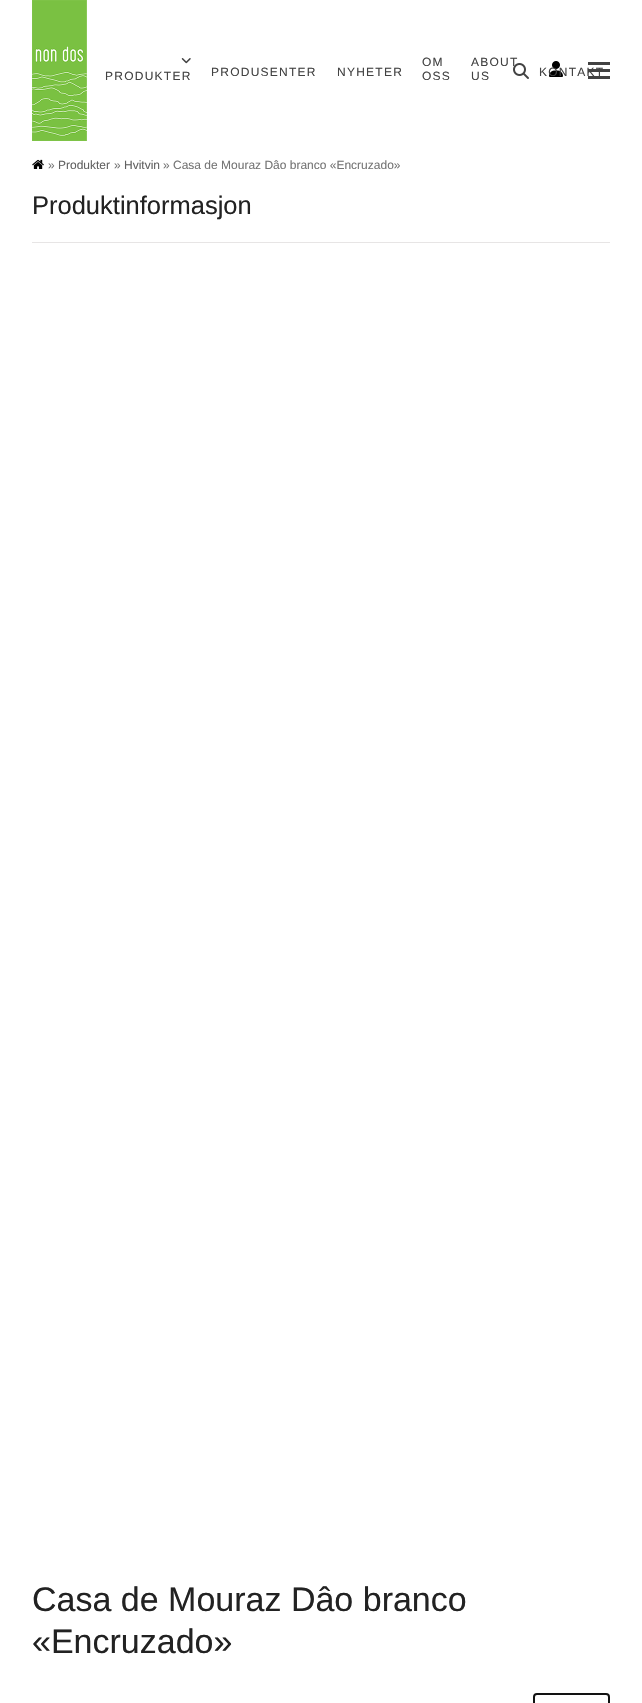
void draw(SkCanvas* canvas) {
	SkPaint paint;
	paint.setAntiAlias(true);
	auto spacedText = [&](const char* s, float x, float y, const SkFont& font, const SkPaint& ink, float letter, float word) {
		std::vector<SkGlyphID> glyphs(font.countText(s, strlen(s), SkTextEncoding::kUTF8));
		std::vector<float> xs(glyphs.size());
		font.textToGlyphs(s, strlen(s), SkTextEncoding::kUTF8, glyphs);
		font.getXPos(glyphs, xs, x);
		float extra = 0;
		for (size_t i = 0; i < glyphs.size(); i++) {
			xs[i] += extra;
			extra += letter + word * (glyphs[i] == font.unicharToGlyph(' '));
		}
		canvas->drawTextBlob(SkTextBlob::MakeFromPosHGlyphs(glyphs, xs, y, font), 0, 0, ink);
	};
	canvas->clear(0xffffffff);
	canvas->drawImageRect(SkImages::DeferredFromEncodedData(SkData::MakeFromFileName("img1.png")), SkRect::MakeXYWH(32, 0, 55, 141), SkSamplingOptions());
	canvas->drawImageRect(SkImages::DeferredFromEncodedData(SkData::MakeFromFileName("img2.png")), SkRect::MakeXYWH(181, 58, 10, 6), SkSamplingOptions());
	SkFont f1(fontMgr->matchFamilyStyle("Liberation Sans", SkFontStyle::Normal()), 12);
	f1.setSubpixel(true);
	paint.setColor(0xff424242);
	spacedText("PRODUKTER", 105, 80, f1, paint, 1.25, 0);
	spacedText("PRODUSENTER", 211, 76, f1, paint, 1.25, 0);
	spacedText("NYHETER", 337, 76, f1, paint, 1.25, 0);
	spacedText("OM", 422, 66, f1, paint, 1.25, 0);
	spacedText("OSS", 422, 80, f1, paint, 1.25, 0);
	canvas->drawImageRect(SkImages::DeferredFromEncodedData(SkData::MakeFromFileName("img3.png")), SkRect::MakeXYWH(513, 63, 16, 16), SkSamplingOptions());
	spacedText("ABOUT", 471, 66, f1, paint, 1.25, 0);
	spacedText("US", 471, 80, f1, paint, 1.25, 0);
	canvas->drawImageRect(SkImages::DeferredFromEncodedData(SkData::MakeFromFileName("img4.png")), SkRect::MakeXYWH(549, 61, 14, 16), SkSamplingOptions());
	spacedText("KONTAKT", 539, 76, f1, paint, 1.25, 0);
	canvas->drawRect(SkRect::MakeXYWH(588, 69, 22, 3), paint);
	canvas->drawRect(SkRect::MakeXYWH(588, 62, 22, 3), paint);
	canvas->drawRect(SkRect::MakeXYWH(588, 76, 22, 3), paint);
	canvas->drawImageRect(SkImages::DeferredFromEncodedData(SkData::MakeFromFileName("img5.png")), SkRect::MakeXYWH(32, 159, 12, 10), SkSamplingOptions());
	paint.setColor(0xff757575);
	canvas->drawString("»", 48, 169, f1, paint);
	paint.setColor(0xff616161);
	canvas->drawString("Produkter", 58, 169, f1, paint);
	paint.setColor(0xff757575);
	canvas->drawString("»", 114, 169, f1, paint);
	paint.setColor(0xff616161);
	canvas->drawString("Hvitvin", 124, 169, f1, paint);
	paint.setColor(0xff757575);
	canvas->drawString("» Casa de Mouraz Dâo branco «Encruzado»", 163, 169, f1, paint);
	paint.setColor(0xffe7e5e5);
	canvas->drawRect(SkRect::MakeXYWH(32, 242, 578, 1), paint);
	SkFont f2(fontMgr->matchFamilyStyle("Liberation Sans", SkFontStyle::Normal()), 25.5);
	f2.setSubpixel(true);
	paint.setColor(0xff222222);
	canvas->drawString("Produktinformasjon", 32, 214, f2, paint);
	SkFont f3(fontMgr->matchFamilyStyle("Liberation Sans", SkFontStyle::Normal()), 34);
	f3.setSubpixel(true);
	canvas->drawString("Casa de Mouraz Dâo branco", 32, 1611, f3, paint);
	canvas->drawString("«Encruzado»", 32, 1653, f3, paint);
	paint.setStroke(true);
	paint.setStrokeWidth(2);
	paint.setColor(0xff121212);
	canvas->drawRoundRect(SkRect::MakeXYWH(534, 1694, 75, 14), 3, 3, paint);
}
